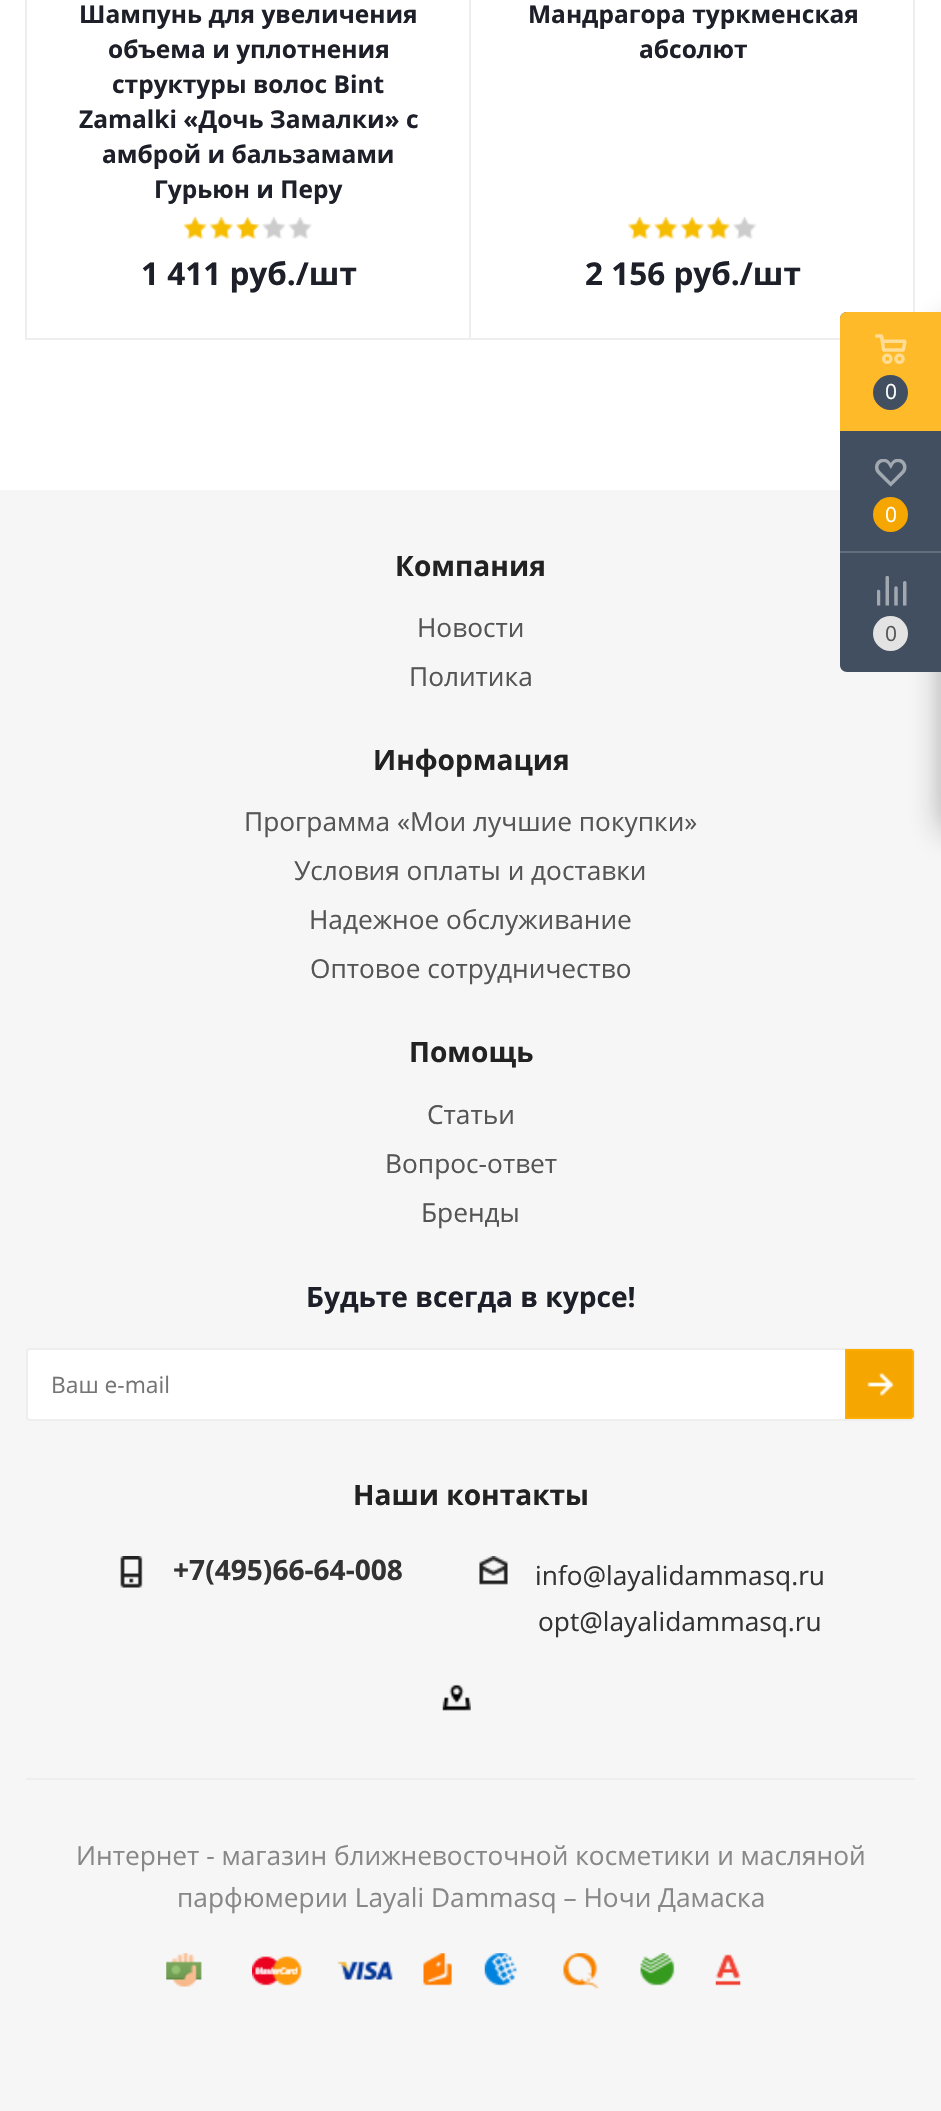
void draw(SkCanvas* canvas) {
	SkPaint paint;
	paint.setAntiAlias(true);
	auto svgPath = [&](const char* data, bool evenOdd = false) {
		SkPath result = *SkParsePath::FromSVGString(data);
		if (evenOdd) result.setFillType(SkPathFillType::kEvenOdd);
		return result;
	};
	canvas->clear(0xffffffff);
	paint.setStroke(true);
	paint.setStrokeWidth(2);
	paint.setColor(0xffeeeeee);
	canvas->drawRect(SkRect::MakeXYWH(26, -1, 444, 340), paint);
	SkFont f1(fontMgr->matchFamilyStyle("Open Sans", SkFontStyle::Bold()), 24.5);
	f1.setSubpixel(true);
	paint.setStroke(false);
	paint.setColor(0xff1d2029);
	canvas->drawString("Шампунь для увеличения", 79, 23, f1, paint);
	canvas->drawString("объема и уплотнения", 108, 58, f1, paint);
	canvas->drawString("структуры волос Bint", 112, 93, f1, paint);
	canvas->drawString("Zamalki «Дочь Замалки» с", 79, 128, f1, paint);
	canvas->drawString("амброй и бальзамами", 102, 163, f1, paint);
	canvas->drawString("Гурьюн и Перу", 154, 198, f1, paint);
	canvas->drawImageRect(SkImages::DeferredFromEncodedData(SkData::MakeFromFileName("img1.png")), SkRect::MakeXYWH(183, 217, 24, 23), SkSamplingOptions());
	canvas->drawImageRect(SkImages::DeferredFromEncodedData(SkData::MakeFromFileName("img2.png")), SkRect::MakeXYWH(209, 217, 25, 23), SkSamplingOptions());
	canvas->drawImageRect(SkImages::DeferredFromEncodedData(SkData::MakeFromFileName("img3.png")), SkRect::MakeXYWH(235, 217, 25, 23), SkSamplingOptions());
	canvas->drawImageRect(SkImages::DeferredFromEncodedData(SkData::MakeFromFileName("img4.png")), SkRect::MakeXYWH(262, 217, 24, 22), SkSamplingOptions());
	canvas->drawImageRect(SkImages::DeferredFromEncodedData(SkData::MakeFromFileName("img5.png")), SkRect::MakeXYWH(288, 217, 24, 22), SkSamplingOptions());
	SkFont f2(fontMgr->matchFamilyStyle("Open Sans", SkFontStyle::Bold()), 31.5);
	f2.setSubpixel(true);
	canvas->drawString("1 411 руб./шт", 141, 285, f2, paint);
	paint.setStroke(true);
	paint.setColor(0xffeeeeee);
	canvas->drawRect(SkRect::MakeXYWH(470, -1, 444, 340), paint);
	paint.setStroke(false);
	paint.setColor(0xff1d2029);
	canvas->drawString("Мандрагора туркменская", 528, 23, f1, paint);
	canvas->drawString("абсолют", 639, 58, f1, paint);
	canvas->drawImageRect(SkImages::DeferredFromEncodedData(SkData::MakeFromFileName("img6.png")), SkRect::MakeXYWH(628, 217, 24, 23), SkSamplingOptions());
	canvas->drawImageRect(SkImages::DeferredFromEncodedData(SkData::MakeFromFileName("img7.png")), SkRect::MakeXYWH(654, 217, 24, 23), SkSamplingOptions());
	canvas->drawImageRect(SkImages::DeferredFromEncodedData(SkData::MakeFromFileName("img1.png")), SkRect::MakeXYWH(680, 217, 24, 23), SkSamplingOptions());
	canvas->drawImageRect(SkImages::DeferredFromEncodedData(SkData::MakeFromFileName("img8.png")), SkRect::MakeXYWH(706, 217, 25, 23), SkSamplingOptions());
	canvas->drawImageRect(SkImages::DeferredFromEncodedData(SkData::MakeFromFileName("img9.png")), SkRect::MakeXYWH(733, 217, 24, 22), SkSamplingOptions());
	canvas->drawString("2 156 руб./шт", 585, 285, f2, paint);
	paint.setStroke(true);
	paint.setColor(0xffeeeeee);
	canvas->drawRect(SkRect::MakeXYWH(915, -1, 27, 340), paint);
	paint.setStroke(false);
	paint.setColor(0xffffffff);
	canvas->drawRect(SkRect::MakeXYWH(915, 0, 1, 312), paint);
	paint.setColor(0xfff6f6f7);
	canvas->drawRect(SkRect::MakeXYWH(0, 490, 941, 1621), paint);
	paint.setColor(0x662c2c2c);
	paint.setMaskFilter(SkMaskFilter::MakeBlur(kNormal_SkBlurStyle, 16));
	canvas->drawRoundRect(SkRect::MakeXYWH(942, 322, 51, 509), 4, 4, paint);
	paint.setMaskFilter(nullptr);
	paint.setColor(0xff424f60);
	canvas->drawPath(svgPath("M847 312H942V672H847C843 672 840 669 840 665V319C840 315 843 312 847 312Z"), paint);
	paint.setColor(0xffffba29);
	canvas->drawPath(svgPath("M847 312H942V431H840V319C840 315 843 312 847 312Z"), paint);
	canvas->drawImageRect(SkImages::DeferredFromEncodedData(SkData::MakeFromFileName("img10.png")), SkRect::MakeXYWH(875, 334, 32, 30), SkSamplingOptions());
	paint.setColor(0xff424f60);
	canvas->drawCircle(890.5, 392.5, 17.5, paint);
	SkFont f3(fontMgr->matchFamilyStyle("Open Sans", SkFontStyle::Normal()), 21);
	f3.setSubpixel(true);
	paint.setColor(0xffffffff);
	canvas->drawString("0", 885, 399, f3, paint);
	canvas->drawImageRect(SkImages::DeferredFromEncodedData(SkData::MakeFromFileName("img11.png")), SkRect::MakeXYWH(875, 459, 32, 28), SkSamplingOptions());
	paint.setColor(0xfff5a600);
	canvas->drawCircle(890.5, 514.5, 17.5, paint);
	paint.setColor(0xffffffff);
	canvas->drawString("0", 885, 522, f3, paint);
	paint.setColor(0xff636f7d);
	canvas->drawRect(SkRect::MakeXYWH(840, 551, 101, 2), paint);
	canvas->drawImageRect(SkImages::DeferredFromEncodedData(SkData::MakeFromFileName("img12.png")), SkRect::MakeXYWH(877, 576, 30, 30), SkSamplingOptions());
	paint.setColor(0xffe3e3e3);
	canvas->drawCircle(890.5, 633.5, 17.5, paint);
	paint.setColor(0xff555555);
	canvas->drawString("0", 885, 641, f3, paint);
	SkFont f4(fontMgr->matchFamilyStyle("Open Sans", SkFontStyle::Bold()), 28.1);
	f4.setSubpixel(true);
	paint.setColor(0xff222222);
	canvas->drawString("Компания", 395, 576, f4, paint);
	SkFont f5(fontMgr->matchFamilyStyle("Open Sans", SkFontStyle::Normal()), 26.25);
	f5.setSubpixel(true);
	paint.setColor(0xff555555);
	canvas->drawString("Новости", 417, 637, f5, paint);
	canvas->drawString("Политика", 409, 686, f5, paint);
	paint.setColor(0xff222222);
	canvas->drawString("Информация", 373, 770, f4, paint);
	paint.setColor(0xff555555);
	canvas->drawString("Программа «Мои лучшие покупки»", 244, 831, f5, paint);
	canvas->drawString("Условия оплаты и доставки", 294, 880, f5, paint);
	canvas->drawString("Надежное обслуживание", 309, 929, f5, paint);
	canvas->drawString("Оптовое сотрудничество", 310, 978, f5, paint);
	paint.setColor(0xff222222);
	canvas->drawString("Помощь", 409, 1062, f4, paint);
	paint.setColor(0xff555555);
	canvas->drawString("Статьи", 427, 1124, f5, paint);
	canvas->drawString("Вопрос-ответ", 385, 1173, f5, paint);
	canvas->drawString("Бренды", 421, 1222, f5, paint);
	paint.setColor(0xff1d2029);
	canvas->drawString("Будьте всегда в курсе!", 306, 1307, f4, paint);
	paint.setColor(0xffffffff);
	canvas->drawRoundRect(SkRect::MakeXYWH(27, 1349, 887, 71), 3, 3, paint);
	paint.setStroke(true);
	paint.setColor(0xffeeeeee);
	canvas->drawRoundRect(SkRect::MakeXYWH(27, 1349, 887, 71), 3, 3, paint);
	SkFont f6(fontMgr->matchFamilyStyle("Open Sans", SkFontStyle::Normal()), 22.75);
	f6.setSubpixel(true);
	paint.setStroke(false);
	paint.setColor(0xff757575);
	canvas->drawString("Ваш e-mail", 51, 1393, f6, paint);
	paint.setColor(0xfff5a600);
	canvas->drawPath(svgPath("M845 1349H910C912 1349 914 1351 914 1353V1415C914 1417 912 1419 910 1419H845Z"), paint);
	canvas->drawImageRect(SkImages::DeferredFromEncodedData(SkData::MakeFromFileName("img13.png")), SkRect::MakeXYWH(867, 1372, 28, 24), SkSamplingOptions());
	paint.setStroke(true);
	paint.setColor(0xffffad00);
	canvas->drawPath(svgPath("M846 1350H910C911.5 1350 913 1351.5 913 1353V1415C913 1416.5 911.5 1418 910 1418H846Z"), paint);
	paint.setStroke(false);
	paint.setColor(0xff222222);
	canvas->drawString("Наши контакты", 353, 1505, f4, paint);
	canvas->drawImageRect(SkImages::DeferredFromEncodedData(SkData::MakeFromFileName("img14.png")), SkRect::MakeXYWH(120, 1556, 23, 32), SkSamplingOptions());
	paint.setColor(0xff333333);
	canvas->drawString("+7(495)66-64-008", 173, 1580, f4, paint);
	canvas->drawImageRect(SkImages::DeferredFromEncodedData(SkData::MakeFromFileName("img15.png")), SkRect::MakeXYWH(479, 1556, 29, 29), SkSamplingOptions());
	canvas->drawString("info@layalidammasq.ru", 535, 1585, f5, paint);
	canvas->drawString("opt@layalidammasq.ru", 538, 1631, f5, paint);
	canvas->drawImageRect(SkImages::DeferredFromEncodedData(SkData::MakeFromFileName("img16.png")), SkRect::MakeXYWH(442, 1684, 29, 27), SkSamplingOptions());
	paint.setColor(0xffeeeeee);
	canvas->drawRect(SkRect::MakeXYWH(26, 1778, 889, 2), paint);
	paint.setColor(0xff888888);
	canvas->drawString("Интернет - магазин ближневосточной косметики и масляной", 76, 1865, f5, paint);
	canvas->drawString("парфюмерии Layali Dammasq – Ночи Дамаска", 177, 1907, f5, paint);
	canvas->drawImageRect(SkImages::DeferredFromEncodedData(SkData::MakeFromFileName("img17.png")), SkRect::MakeXYWH(166, 1953, 36, 34), SkSamplingOptions());
	canvas->drawImageRect(SkImages::DeferredFromEncodedData(SkData::MakeFromFileName("img18.png")), SkRect::MakeXYWH(252, 1956, 50, 30), SkSamplingOptions());
	canvas->drawImageRect(SkImages::DeferredFromEncodedData(SkData::MakeFromFileName("img19.png")), SkRect::MakeXYWH(337, 1960, 56, 21), SkSamplingOptions());
	canvas->drawImageRect(SkImages::DeferredFromEncodedData(SkData::MakeFromFileName("img20.png")), SkRect::MakeXYWH(423, 1953, 29, 33), SkSamplingOptions());
	canvas->drawImageRect(SkImages::DeferredFromEncodedData(SkData::MakeFromFileName("img21.png")), SkRect::MakeXYWH(484, 1953, 33, 33), SkSamplingOptions());
	canvas->drawImageRect(SkImages::DeferredFromEncodedData(SkData::MakeFromFileName("img22.png")), SkRect::MakeXYWH(563, 1953, 36, 36), SkSamplingOptions());
	canvas->drawImageRect(SkImages::DeferredFromEncodedData(SkData::MakeFromFileName("img23.png")), SkRect::MakeXYWH(640, 1953, 35, 33), SkSamplingOptions());
	canvas->drawImageRect(SkImages::DeferredFromEncodedData(SkData::MakeFromFileName("img24.png")), SkRect::MakeXYWH(715, 1954, 26, 32), SkSamplingOptions());
}
